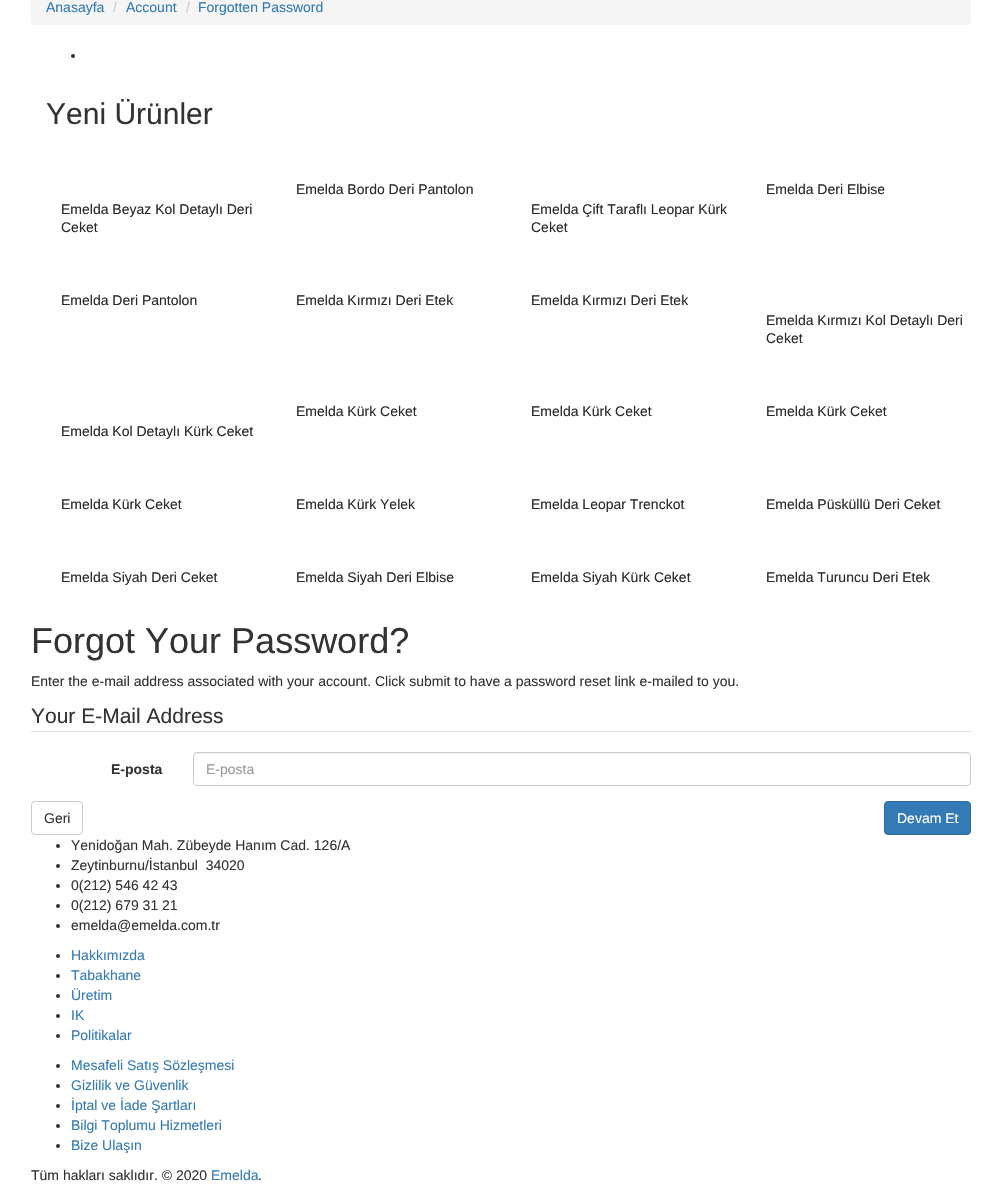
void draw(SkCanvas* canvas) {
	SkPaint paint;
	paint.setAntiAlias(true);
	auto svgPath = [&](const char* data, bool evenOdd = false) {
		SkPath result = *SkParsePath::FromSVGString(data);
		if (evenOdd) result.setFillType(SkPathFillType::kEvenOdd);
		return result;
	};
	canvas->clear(0xffffffff);
	paint.setColor(0xfff5f5f5);
	canvas->drawRoundRect(SkRect::MakeXYWH(31, -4, 940, 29), 4, 4, paint);
	SkFont f1(fontMgr->matchFamilyStyle("Liberation Sans", SkFontStyle::Normal()), 14);
	f1.setSubpixel(true);
	paint.setColor(0xff337ab7);
	canvas->drawString("Anasayfa", 46, 12, f1, paint);
	paint.setColor(0xffcccccc);
	canvas->drawString("/", 113, 12, f1, paint);
	paint.setColor(0xff337ab7);
	canvas->drawString("Account", 126, 12, f1, paint);
	paint.setColor(0xffcccccc);
	canvas->drawString("/", 186, 12, f1, paint);
	paint.setColor(0xff337ab7);
	canvas->drawString("Forgotten Password", 198, 12, f1, paint);
	paint.setColor(0xff333333);
	canvas->drawCircle(73, 56, 2, paint);
	SkFont f2(fontMgr->matchFamilyStyle("Liberation Sans", SkFontStyle::Normal()), 30);
	f2.setSubpixel(true);
	canvas->drawString("Yeni Ürünler", 46, 124, f2, paint);
	paint.setColor(0xff292929);
	canvas->drawString("Emelda Bordo Deri Pantolon", 296, 194, f1, paint);
	canvas->drawString("Emelda Deri Elbise", 766, 194, f1, paint);
	canvas->drawString("Emelda Beyaz Kol Detaylı Deri", 61, 214, f1, paint);
	canvas->drawString("Ceket", 61, 232, f1, paint);
	canvas->drawString("Emelda Çift Taraflı Leopar Kürk", 531, 214, f1, paint);
	canvas->drawString("Ceket", 531, 232, f1, paint);
	canvas->drawString("Emelda Deri Pantolon", 61, 305, f1, paint);
	canvas->drawString("Emelda Kırmızı Deri Etek", 296, 305, f1, paint);
	canvas->drawString("Emelda Kırmızı Deri Etek", 531, 305, f1, paint);
	canvas->drawString("Emelda Kırmızı Kol Detaylı Deri", 766, 325, f1, paint);
	canvas->drawString("Ceket", 766, 343, f1, paint);
	canvas->drawString("Emelda Kürk Ceket", 296, 416, f1, paint);
	canvas->drawString("Emelda Kürk Ceket", 531, 416, f1, paint);
	canvas->drawString("Emelda Kürk Ceket", 766, 416, f1, paint);
	canvas->drawString("Emelda Kol Detaylı Kürk Ceket", 61, 436, f1, paint);
	canvas->drawString("Emelda Kürk Ceket", 61, 509, f1, paint);
	canvas->drawString("Emelda Kürk Yelek", 296, 509, f1, paint);
	canvas->drawString("Emelda Leopar Trenckot", 531, 509, f1, paint);
	canvas->drawString("Emelda Püsküllü Deri Ceket", 766, 509, f1, paint);
	canvas->drawString("Emelda Siyah Deri Ceket", 61, 582, f1, paint);
	canvas->drawString("Emelda Siyah Deri Elbise", 296, 582, f1, paint);
	canvas->drawString("Emelda Siyah Kürk Ceket", 531, 582, f1, paint);
	canvas->drawString("Emelda Turuncu Deri Etek", 766, 582, f1, paint);
	SkFont f3(fontMgr->matchFamilyStyle("Liberation Sans", SkFontStyle::Normal()), 36);
	f3.setSubpixel(true);
	paint.setColor(0xff333333);
	canvas->drawString("Forgot Your Password?", 31, 653, f3, paint);
	canvas->drawString("Enter the e-mail address associated with your account. Click submit to have a password reset link e-mailed to you.", 31, 686, f1, paint);
	paint.setColor(0xffe5e5e5);
	canvas->drawRect(SkRect::MakeXYWH(31, 731, 940, 1), paint);
	SkFont f4(fontMgr->matchFamilyStyle("Liberation Sans", SkFontStyle::Normal()), 21);
	f4.setSubpixel(true);
	paint.setColor(0xff333333);
	canvas->drawString("Your E-Mail Address", 31, 723, f4, paint);
	SkFont f5(fontMgr->matchFamilyStyle("Liberation Sans", SkFontStyle::Bold()), 14);
	f5.setSubpixel(true);
	canvas->drawString("E-posta", 111, 774, f5, paint);
	paint.setColor(0xffececec);
	canvas->drawPath(svgPath("M197 754H967C969 754 970 755 970 757C970 755 969 753 967 753H197C195 753 194 755 194 757C194 755 195 754 197 754Z"), paint);
	paint.setStroke(true);
	paint.setStrokeWidth(1);
	paint.setColor(0xffcccccc);
	canvas->drawRoundRect(SkRect::MakeXYWH(193.5, 752.5, 777, 33), 3.5, 3.5, paint);
	paint.setStroke(false);
	paint.setColor(0xff999999);
	canvas->drawString("E-posta", 206, 774, f1, paint);
	paint.setStroke(true);
	paint.setColor(0xffcccccc);
	canvas->drawRoundRect(SkRect::MakeXYWH(31.5, 801.5, 51, 33), 3.5, 3.5, paint);
	paint.setStroke(false);
	paint.setColor(0xff333333);
	canvas->drawString("Geri", 44, 823, f1, paint);
	paint.setColor(0xff337ab7);
	canvas->drawRoundRect(SkRect::MakeXYWH(884.5, 801.5, 86, 33), 3.5, 3.5, paint);
	paint.setStroke(true);
	paint.setColor(0xff2e6da4);
	canvas->drawRoundRect(SkRect::MakeXYWH(884.5, 801.5, 86, 33), 3.5, 3.5, paint);
	paint.setStroke(false);
	paint.setColor(0xffffffff);
	canvas->drawString("Devam Et", 897, 823, f1, paint);
	paint.setColor(0xff333333);
	canvas->drawCircle(58, 846, 2, paint);
	canvas->drawString("Yenidoğan Mah. Zübeyde Hanım Cad. 126/A", 71, 850, f1, paint);
	canvas->drawCircle(58, 866, 2, paint);
	canvas->drawString("Zeytinburnu/İstanbul  34020", 71, 870, f1, paint);
	canvas->drawCircle(58, 886, 2, paint);
	canvas->drawString("0(212) 546 42 43", 71, 890, f1, paint);
	canvas->drawCircle(58, 906, 2, paint);
	canvas->drawString("0(212) 679 31 21", 71, 910, f1, paint);
	canvas->drawCircle(58, 926, 2, paint);
	canvas->drawString("emelda@emelda.com.tr", 71, 930, f1, paint);
	canvas->drawCircle(58, 956, 2, paint);
	paint.setColor(0xff337ab7);
	canvas->drawString("Hakkımızda", 71, 960, f1, paint);
	paint.setColor(0xff333333);
	canvas->drawCircle(58, 976, 2, paint);
	paint.setColor(0xff337ab7);
	canvas->drawString("Tabakhane", 71, 980, f1, paint);
	paint.setColor(0xff333333);
	canvas->drawCircle(58, 996, 2, paint);
	paint.setColor(0xff337ab7);
	canvas->drawString("Üretim", 71, 1000, f1, paint);
	paint.setColor(0xff333333);
	canvas->drawCircle(58, 1016, 2, paint);
	paint.setColor(0xff337ab7);
	canvas->drawString("IK", 71, 1020, f1, paint);
	paint.setColor(0xff333333);
	canvas->drawCircle(58, 1036, 2, paint);
	paint.setColor(0xff337ab7);
	canvas->drawString("Politikalar", 71, 1040, f1, paint);
	paint.setColor(0xff333333);
	canvas->drawCircle(58, 1066, 2, paint);
	paint.setColor(0xff337ab7);
	canvas->drawString("Mesafeli Satış Sözleşmesi", 71, 1070, f1, paint);
	paint.setColor(0xff333333);
	canvas->drawCircle(58, 1086, 2, paint);
	paint.setColor(0xff337ab7);
	canvas->drawString("Gizlilik ve Güvenlik", 71, 1090, f1, paint);
	paint.setColor(0xff333333);
	canvas->drawCircle(58, 1106, 2, paint);
	paint.setColor(0xff337ab7);
	canvas->drawString("İptal ve İade Şartları", 71, 1110, f1, paint);
	paint.setColor(0xff333333);
	canvas->drawCircle(58, 1126, 2, paint);
	paint.setColor(0xff337ab7);
	canvas->drawString("Bilgi Toplumu Hizmetleri", 71, 1130, f1, paint);
	paint.setColor(0xff333333);
	canvas->drawCircle(58, 1146, 2, paint);
	paint.setColor(0xff337ab7);
	canvas->drawString("Bize Ulaşın", 71, 1150, f1, paint);
	paint.setColor(0xff333333);
	canvas->drawString("Tüm hakları saklıdır. © 2020", 31, 1180, f1, paint);
	paint.setColor(0xff337ab7);
	canvas->drawString("Emelda", 211, 1180, f1, paint);
	paint.setColor(0xff333333);
	canvas->drawString(".", 258, 1180, f1, paint);
}
